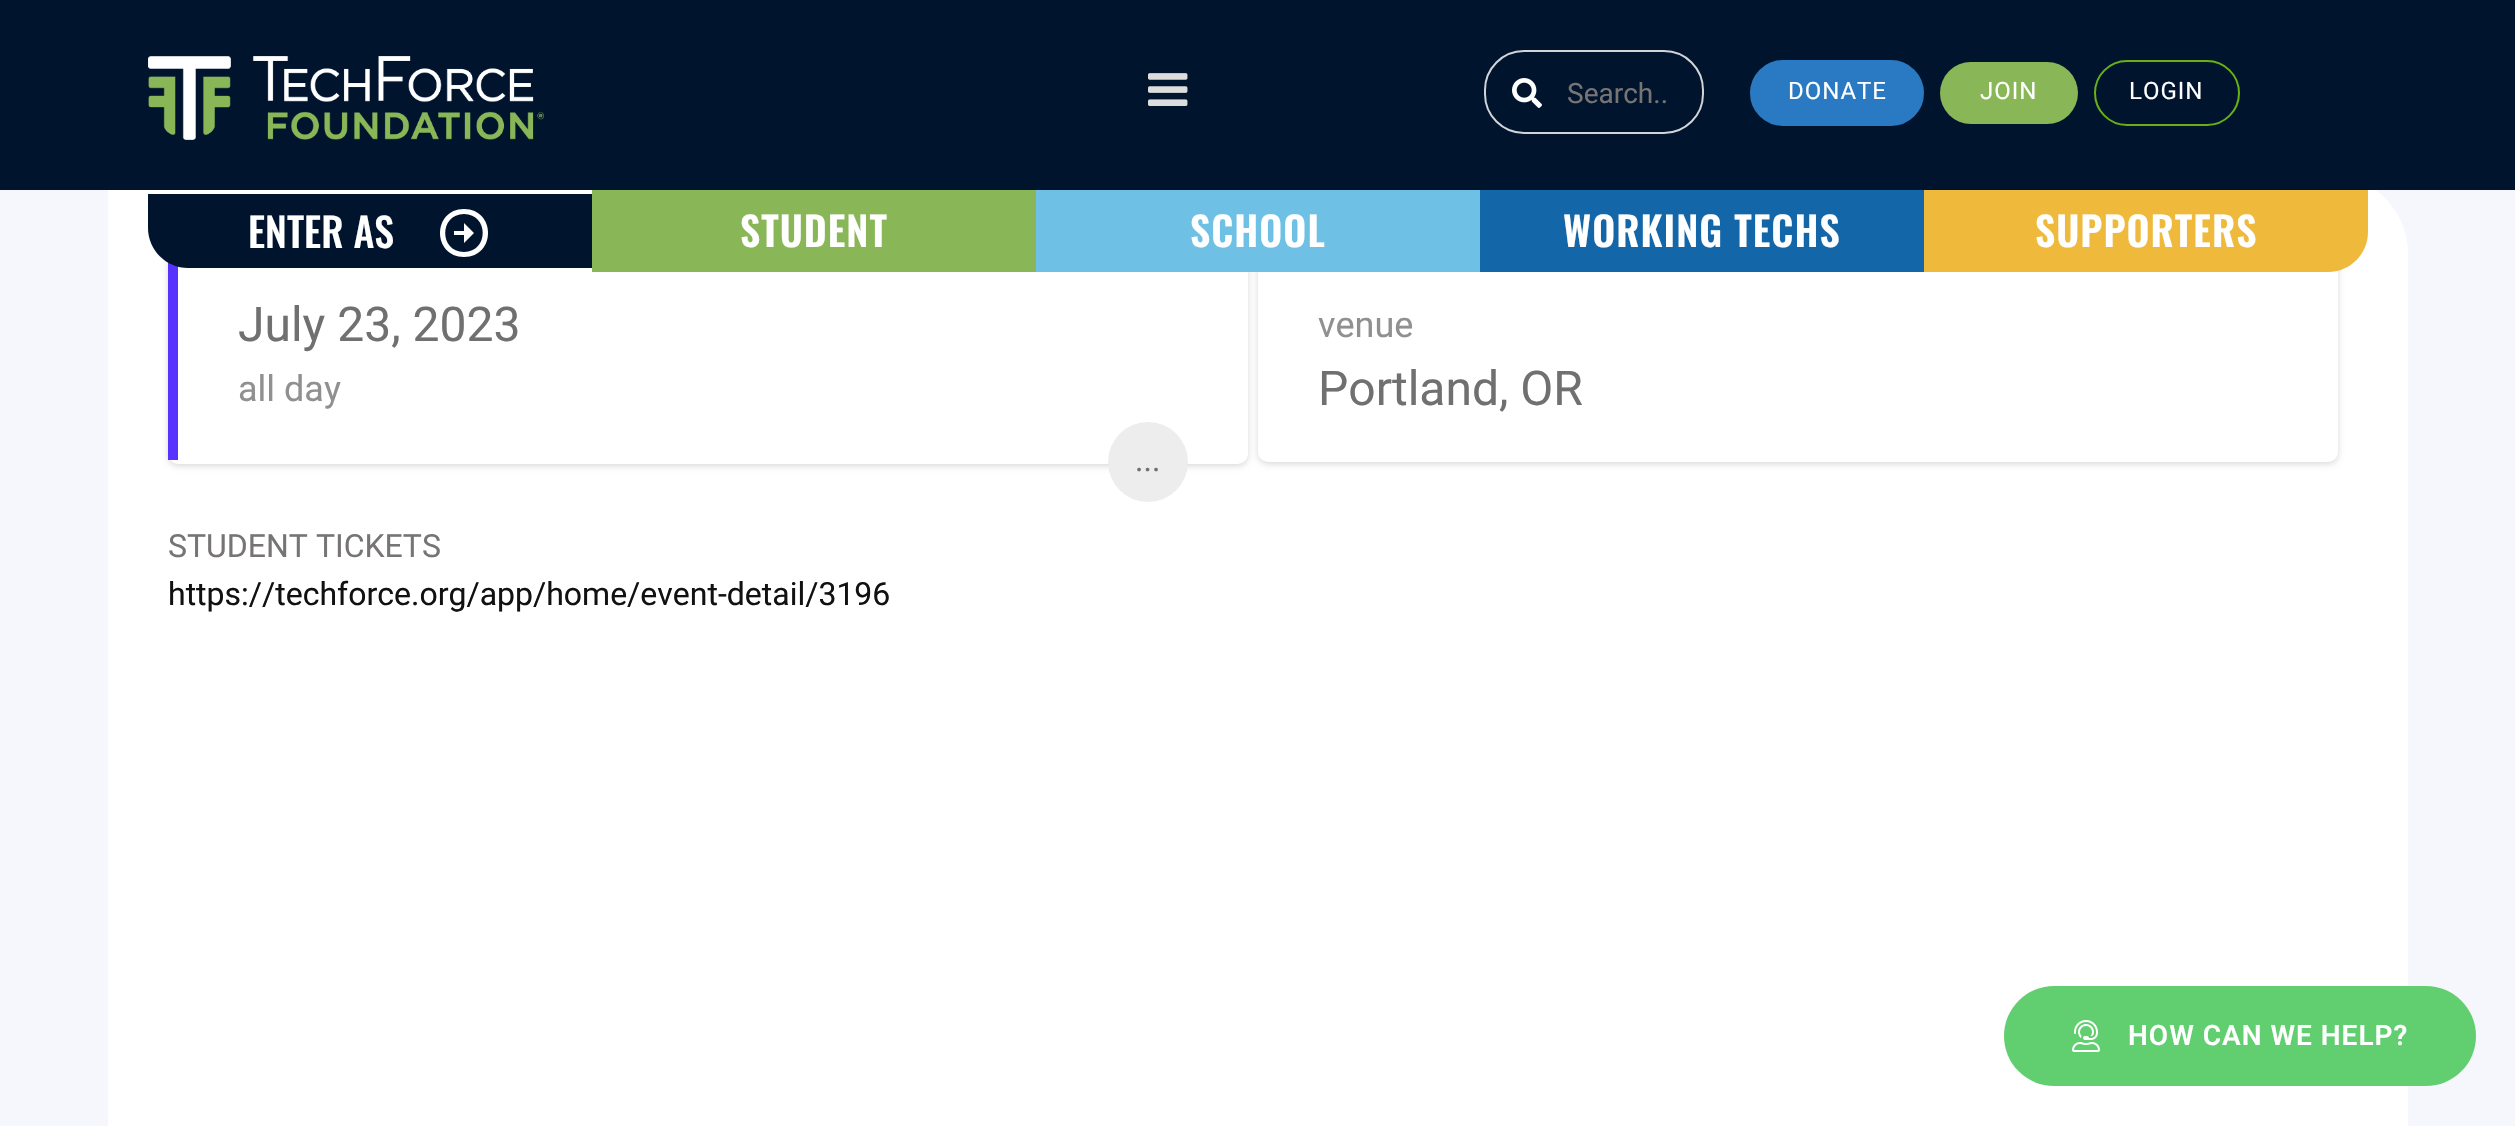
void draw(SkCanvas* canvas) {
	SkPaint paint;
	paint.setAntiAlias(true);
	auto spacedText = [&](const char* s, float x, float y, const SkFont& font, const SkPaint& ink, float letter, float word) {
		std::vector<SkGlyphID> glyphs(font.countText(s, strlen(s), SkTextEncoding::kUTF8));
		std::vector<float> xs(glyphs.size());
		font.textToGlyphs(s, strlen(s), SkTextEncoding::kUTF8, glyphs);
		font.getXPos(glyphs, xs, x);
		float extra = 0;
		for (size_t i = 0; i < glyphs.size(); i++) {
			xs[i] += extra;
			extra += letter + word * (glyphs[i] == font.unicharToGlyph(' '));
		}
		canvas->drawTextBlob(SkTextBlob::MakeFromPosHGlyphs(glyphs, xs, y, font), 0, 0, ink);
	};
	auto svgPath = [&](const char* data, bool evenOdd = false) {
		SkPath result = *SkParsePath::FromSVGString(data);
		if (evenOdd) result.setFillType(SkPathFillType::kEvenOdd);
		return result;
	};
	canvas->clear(0xfff5f7fc);
	paint.setColor(0xffffffff);
	canvas->drawPath(svgPath("M108 174H2328C2372 174 2408 210 2408 254V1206H188C144 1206 108 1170 108 1126Z"), paint);
	paint.setColor(0x26000000);
	paint.setMaskFilter(SkMaskFilter::MakeBlur(kNormal_SkBlurStyle, 3));
	canvas->drawRoundRect(SkRect::MakeXYWH(1258, 256, 1080, 208), 10, 10, paint);
	paint.setMaskFilter(nullptr);
	paint.setColor(0xffffffff);
	canvas->drawRoundRect(SkRect::MakeXYWH(1258, 254, 1080, 208), 10, 10, paint);
	paint.setColor(0xffefb93c);
	canvas->drawPath(svgPath("M1924 188H2368V232C2368 254 2350 272 2328 272H1924Z"), paint);
	paint.setColor(0xff00142d);
	canvas->drawRect(SkRect::MakeXYWH(0, 0, 2515, 190), paint);
	canvas->drawImageRect(SkImages::DeferredFromEncodedData(SkData::MakeFromFileName("img1.png")), SkRect::MakeXYWH(148, 56, 396, 84), SkSamplingOptions());
	canvas->drawImageRect(SkImages::DeferredFromEncodedData(SkData::MakeFromFileName("img2.png")), SkRect::MakeXYWH(1148, 73, 40, 33), SkSamplingOptions());
	paint.setStroke(true);
	paint.setStrokeWidth(2);
	paint.setColor(0xffd1d5d9);
	canvas->drawRoundRect(SkRect::MakeXYWH(1485, 51, 218, 82), 39, 39, paint);
	canvas->drawImageRect(SkImages::DeferredFromEncodedData(SkData::MakeFromFileName("img3.png")), SkRect::MakeXYWH(1512, 78, 30, 30), SkSamplingOptions());
	SkFont f1(fontMgr->matchFamilyStyle("Roboto", SkFontStyle::Normal()), 28);
	f1.setSubpixel(true);
	paint.setStroke(false);
	paint.setColor(0xff777474);
	canvas->drawString("Search..", 1567, 103, f1, paint);
	paint.setColor(0xff297ac3);
	canvas->drawRoundRect(SkRect::MakeXYWH(1751, 61, 172, 64), 32, 32, paint);
	paint.setStroke(true);
	canvas->drawRoundRect(SkRect::MakeXYWH(1751, 61, 172, 64), 32, 32, paint);
	SkFont f2(fontMgr->matchFamilyStyle("Roboto", SkFontStyle::Normal()), 24);
	f2.setSubpixel(true);
	paint.setStroke(false);
	paint.setColor(0xffffffff);
	spacedText("DONATE", 1788, 99, f2, paint, 1, 0);
	paint.setColor(0xff89b657);
	canvas->drawRoundRect(SkRect::MakeXYWH(1940, 62, 138, 62), 31, 31, paint);
	paint.setColor(0xffffffff);
	spacedText("JOIN", 1980, 99, f2, paint, 1, 0);
	paint.setStroke(true);
	paint.setColor(0xff67b114);
	canvas->drawRoundRect(SkRect::MakeXYWH(2095, 61, 144, 64), 32, 32, paint);
	paint.setStroke(false);
	paint.setColor(0xffffffff);
	spacedText("LOGIN", 2129, 99, f2, paint, 1, 0);
	paint.setColor(0x26000000);
	paint.setMaskFilter(SkMaskFilter::MakeBlur(kNormal_SkBlurStyle, 3));
	canvas->drawRoundRect(SkRect::MakeXYWH(168, 256, 1080, 210), 10, 10, paint);
	paint.setMaskFilter(nullptr);
	paint.setColor(0xffffffff);
	canvas->drawRoundRect(SkRect::MakeXYWH(168, 254, 1080, 210), 10, 10, paint);
	paint.setColor(0xff5833ff);
	canvas->drawRect(SkRect::MakeXYWH(168, 262, 10, 198), paint);
	paint.setColor(0xff00142d);
	canvas->drawPath(svgPath("M148 194H592V268H188C166 268 148 250 148 228Z"), paint);
	SkFont f3(fontMgr->matchFamilyStyle("Oswald", SkFontStyle(500, SkFontStyle::kNormal_Width, SkFontStyle::kUpright_Slant)), 40);
	f3.setSubpixel(true);
	paint.setColor(0xffffffff);
	canvas->drawString("ENTER AS", 248, 248, f3, paint);
	canvas->drawPath(svgPath("M464 231V223L474 233L464 243V235H454V231ZM464 209C496 209 496 257 464 257C432 257 432 209 464 209ZM464 252C489 252 489 214 464 214C439 214 439 252 464 252Z"), paint);
	paint.setColor(0xff89b657);
	canvas->drawRect(SkRect::MakeXYWH(592, 190, 444, 82), paint);
	SkFont f4(fontMgr->matchFamilyStyle("Oswald", SkFontStyle(600, SkFontStyle::kNormal_Width, SkFontStyle::kUpright_Slant)), 40);
	f4.setSubpixel(true);
	paint.setColor(0xffffffff);
	spacedText("STUDENT", 740, 247, f4, paint, 1, 0);
	paint.setColor(0xff6ec1e4);
	canvas->drawRect(SkRect::MakeXYWH(1036, 190, 444, 82), paint);
	paint.setColor(0xffffffff);
	spacedText("SCHOOL", 1190, 247, f4, paint, 1, 0);
	paint.setColor(0xff1367a9);
	canvas->drawRect(SkRect::MakeXYWH(1480, 190, 444, 82), paint);
	paint.setColor(0xffffffff);
	spacedText("WORKING TECHS", 1563, 247, f4, paint, 1, 0);
	spacedText("SUPPORTERS", 2035, 247, f4, paint, 1, 0);
	SkFont f5(fontMgr->matchFamilyStyle("Roboto", SkFontStyle::Normal()), 48);
	f5.setSubpixel(true);
	paint.setColor(0xff707070);
	canvas->drawString("July 23, 2023", 238, 341, f5, paint);
	SkFont f6(fontMgr->matchFamilyStyle("Roboto", SkFontStyle::Normal()), 36);
	f6.setSubpixel(true);
	paint.setColor(0xff909090);
	canvas->drawString("all day", 238, 401, f6, paint);
	paint.setColor(0xffededed);
	canvas->drawCircle(1148, 462, 40, paint);
	SkFont f7(fontMgr->matchFamilyStyle("Roboto", SkFontStyle::Normal()), 32);
	f7.setSubpixel(true);
	paint.setColor(0xff707070);
	canvas->drawString("...", 1135, 471, f7, paint);
	paint.setColor(0xff909090);
	canvas->drawString("venue", 1318, 337, f6, paint);
	paint.setColor(0xff707070);
	canvas->drawString("Portland, OR", 1318, 405, f5, paint);
	paint.setColor(0xff777474);
	canvas->drawString("STUDENT TICKETS", 168, 557, f7, paint);
	paint.setColor(0xff111111);
	canvas->drawString("https://techforce.org/app/home/event-detail/3196", 168, 605, f7, paint);
	paint.setColor(0xff61ce70);
	canvas->drawRoundRect(SkRect::MakeXYWH(2004, 986, 472, 100), 50, 50, paint);
	canvas->drawImageRect(SkImages::DeferredFromEncodedData(SkData::MakeFromFileName("img4.png")), SkRect::MakeXYWH(2072, 1020, 28, 32), SkSamplingOptions());
	SkFont f8(fontMgr->matchFamilyStyle("Roboto", SkFontStyle(600, SkFontStyle::kNormal_Width, SkFontStyle::kUpright_Slant)), 28);
	f8.setSubpixel(true);
	paint.setColor(0xffffffff);
	spacedText("HOW CAN WE HELP?", 2128, 1045, f8, paint, 1, 0);
}
